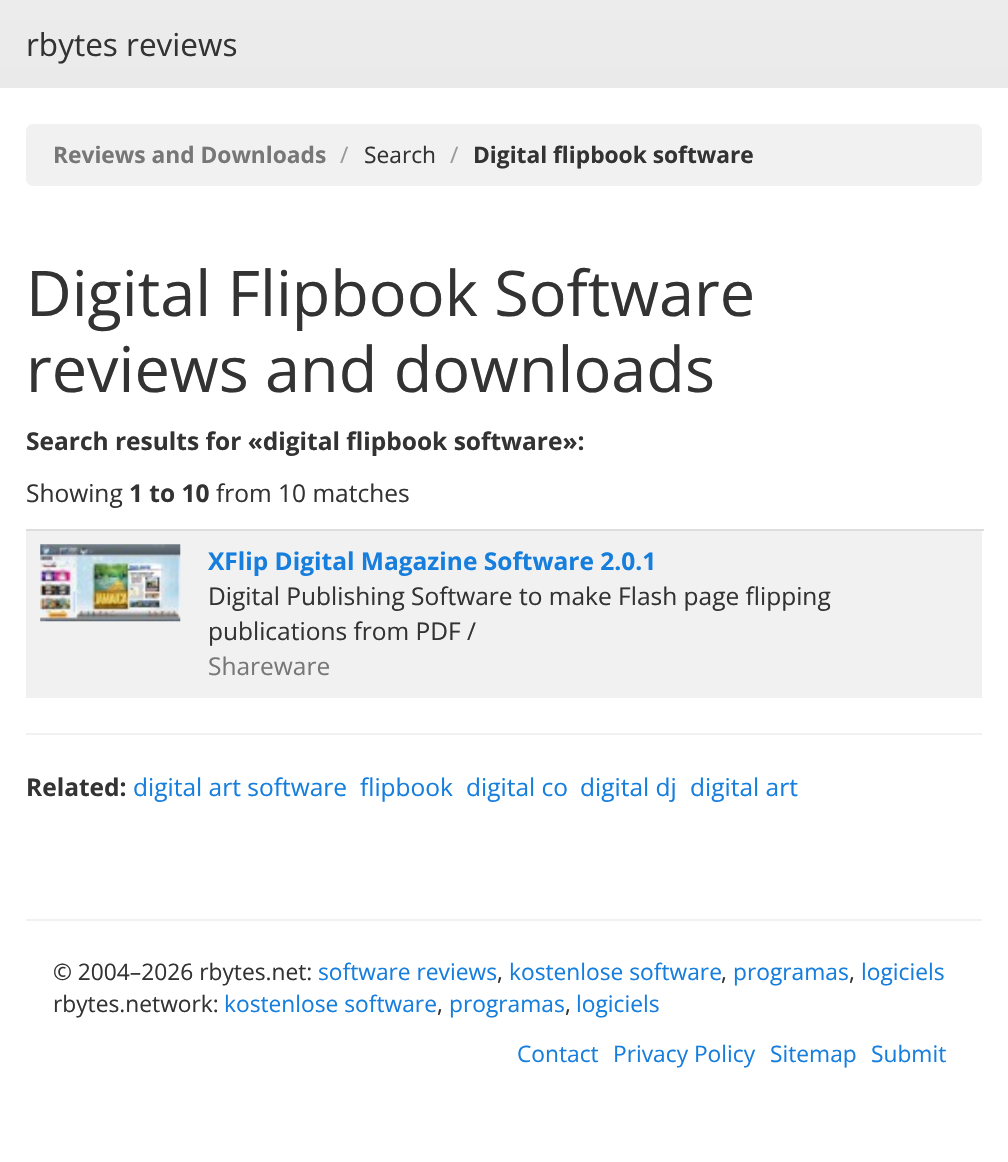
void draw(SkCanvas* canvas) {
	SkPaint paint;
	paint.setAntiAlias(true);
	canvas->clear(0xffffffff);
	{
		const SkColor colors[] = {0xffececec, 0xffeaeaea};
		const float stops[] = {0, 1};
		const SkPoint ends[] = {{504, 0}, {504, 88}};
		paint.setShader(SkGradientShader::MakeLinear(ends, colors, stops, 2, SkTileMode::kClamp));
		paint.setAlpha(255);
	}
	canvas->drawRect(SkRect::MakeXYWH(0, 0, 1008, 88), paint);
	SkFont f1(fontMgr->matchFamilyStyle("Open Sans", SkFontStyle::Normal()), 31.5);
	f1.setSubpixel(true);
	paint.setShader(nullptr);
	paint.setColor(0xff333333);
	canvas->drawString("rbytes reviews", 26, 56, f1, paint);
	paint.setColor(0xfff1f1f1);
	canvas->drawRoundRect(SkRect::MakeXYWH(26, 124, 956, 62), 7, 7, paint);
	SkFont f2(fontMgr->matchFamilyStyle("Open Sans", SkFontStyle::Bold()), 22.75);
	f2.setSubpixel(true);
	paint.setColor(0xff777777);
	canvas->drawString("Reviews and Downloads", 53, 163, f2, paint);
	SkFont f3(fontMgr->matchFamilyStyle("Open Sans", SkFontStyle::Normal()), 22.75);
	f3.setSubpixel(true);
	paint.setColor(0xff999999);
	canvas->drawString("/", 340, 163, f3, paint);
	paint.setColor(0xff333333);
	canvas->drawString("Search", 364, 163, f3, paint);
	paint.setColor(0xff999999);
	canvas->drawString("/", 450, 163, f3, paint);
	paint.setColor(0xff333333);
	canvas->drawString("Digital flipbook software", 473, 163, f2, paint);
	SkFont f4(fontMgr->matchFamilyStyle("Open Sans", SkFontStyle::Normal()), 63);
	f4.setSubpixel(true);
	canvas->drawString("Digital Flipbook Software", 26, 316, f4, paint);
	canvas->drawString("reviews and downloads", 26, 392, f4, paint);
	SkFont f5(fontMgr->matchFamilyStyle("Open Sans", SkFontStyle::Bold()), 24.5);
	f5.setSubpixel(true);
	canvas->drawString("Search results for «digital flipbook software»:", 26, 450, f5, paint);
	SkFont f6(fontMgr->matchFamilyStyle("Open Sans", SkFontStyle::Normal()), 24.5);
	f6.setSubpixel(true);
	canvas->drawString("Showing", 26, 502, f6, paint);
	canvas->drawString("1 to 10", 129, 502, f5, paint);
	canvas->drawString("from 10 matches", 216, 502, f6, paint);
	paint.setColor(0xfff1f1f1);
	canvas->drawRect(SkRect::MakeXYWH(26, 531, 956, 167), paint);
	canvas->drawImageRect(SkImages::DeferredFromEncodedData(SkData::MakeFromFileName("img1.png")), SkRect::MakeXYWH(40, 544, 141, 78), SkSamplingOptions());
	paint.setColor(0xffdddddd);
	canvas->drawRect(SkRect::MakeXYWH(26, 529, 958, 2), paint);
	paint.setColor(0xff167edd);
	canvas->drawString("XFlip Digital Magazine Software 2.0.1", 208, 570, f5, paint);
	paint.setColor(0xff333333);
	canvas->drawString("Digital Publishing Software to make Flash page flipping", 208, 605, f6, paint);
	canvas->drawString("publications from PDF /", 208, 640, f6, paint);
	paint.setColor(0xff777777);
	canvas->drawString("Shareware", 208, 675, f6, paint);
	paint.setColor(0xfff1f1f1);
	canvas->drawRect(SkRect::MakeXYWH(26, 733, 956, 2), paint);
	paint.setColor(0xff333333);
	canvas->drawString("Related:", 26, 796, f5, paint);
	paint.setColor(0xff167edd);
	canvas->drawString("digital art software", 133, 796, f6, paint);
	canvas->drawString("flipbook", 360, 796, f6, paint);
	canvas->drawString("digital co", 466, 796, f6, paint);
	canvas->drawString("digital dj", 580, 796, f6, paint);
	canvas->drawString("digital art", 690, 796, f6, paint);
	paint.setColor(0xfff1f1f1);
	canvas->drawRect(SkRect::MakeXYWH(26, 919, 956, 2), paint);
	paint.setColor(0xff333333);
	canvas->drawString("© 2004–2026 rbytes.net:", 53, 980, f3, paint);
	paint.setColor(0xff167edd);
	canvas->drawString("software reviews", 318, 980, f3, paint);
	paint.setColor(0xff333333);
	canvas->drawString(",", 497, 980, f3, paint);
	paint.setColor(0xff167edd);
	canvas->drawString("kostenlose software", 509, 980, f3, paint);
	paint.setColor(0xff333333);
	canvas->drawString(",", 721, 980, f3, paint);
	paint.setColor(0xff167edd);
	canvas->drawString("programas", 733, 980, f3, paint);
	paint.setColor(0xff333333);
	canvas->drawString(",", 849, 980, f3, paint);
	paint.setColor(0xff167edd);
	canvas->drawString("logiciels", 861, 980, f3, paint);
	paint.setColor(0xff333333);
	canvas->drawString("rbytes.network:", 53, 1012, f3, paint);
	paint.setColor(0xff167edd);
	canvas->drawString("kostenlose software", 224, 1012, f3, paint);
	paint.setColor(0xff333333);
	canvas->drawString(",", 437, 1012, f3, paint);
	paint.setColor(0xff167edd);
	canvas->drawString("programas", 449, 1012, f3, paint);
	paint.setColor(0xff333333);
	canvas->drawString(",", 565, 1012, f3, paint);
	paint.setColor(0xff167edd);
	canvas->drawString("logiciels", 576, 1012, f3, paint);
	canvas->drawString("Contact", 517, 1062, f3, paint);
	canvas->drawString("Privacy Policy", 613, 1062, f3, paint);
	canvas->drawString("Sitemap", 770, 1062, f3, paint);
	canvas->drawString("Submit", 871, 1062, f3, paint);
}
